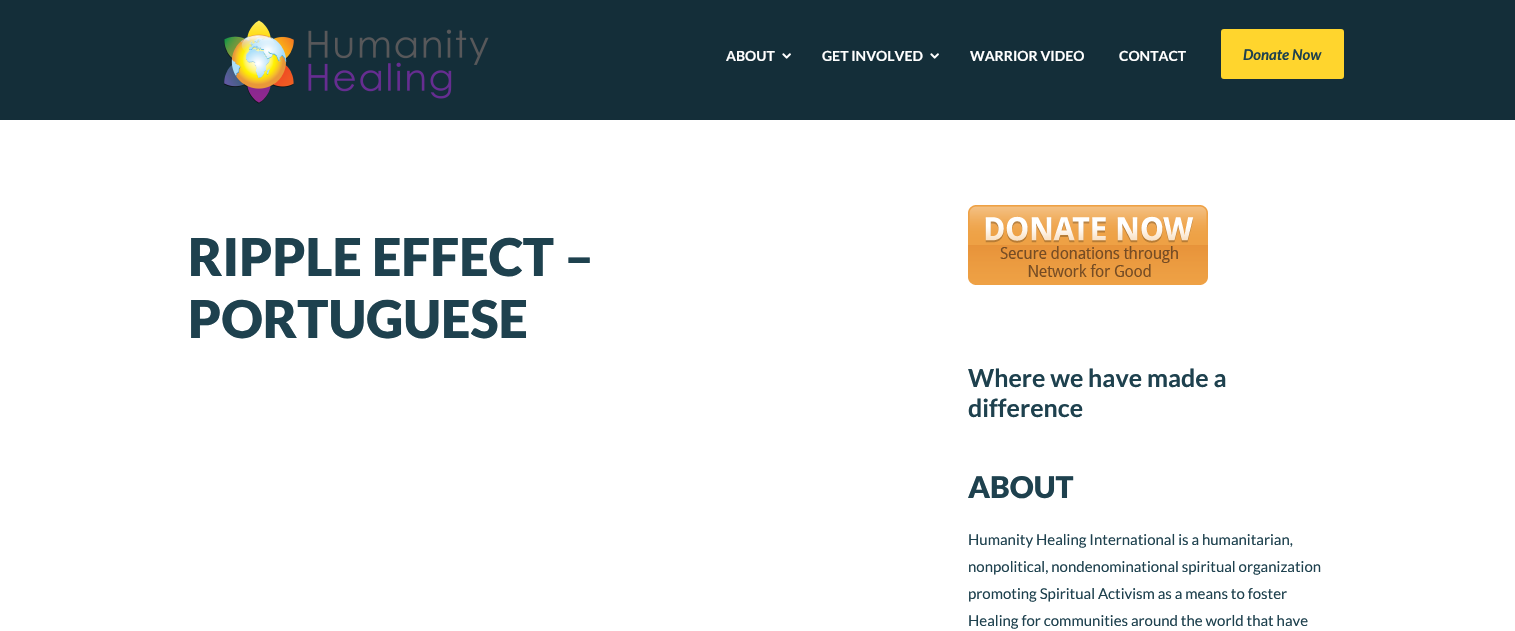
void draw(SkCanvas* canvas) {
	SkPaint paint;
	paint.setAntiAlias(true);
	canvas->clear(0xffffffff);
	paint.setColor(0xff142e39);
	canvas->drawRect(SkRect::MakeXYWH(0, 0, 1515, 120), paint);
	canvas->drawImageRect(SkImages::DeferredFromEncodedData(SkData::MakeFromFileName("img1.png")), SkRect::MakeXYWH(224, 20, 265, 84), SkSamplingOptions());
	SkFont f1(fontMgr->matchFamilyStyle("Lato", SkFontStyle::Bold()), 14);
	f1.setSubpixel(true);
	paint.setColor(0xffffffff);
	canvas->drawString("ABOUT", 726, 61, f1, paint);
	canvas->drawImageRect(SkImages::DeferredFromEncodedData(SkData::MakeFromFileName("img2.png")), SkRect::MakeXYWH(782, 53, 9, 6), SkSamplingOptions());
	canvas->drawString("GET INVOLVED", 822, 61, f1, paint);
	canvas->drawImageRect(SkImages::DeferredFromEncodedData(SkData::MakeFromFileName("img2.png")), SkRect::MakeXYWH(930, 53, 9, 6), SkSamplingOptions());
	canvas->drawString("WARRIOR VIDEO", 970, 61, f1, paint);
	canvas->drawString("CONTACT", 1119, 61, f1, paint);
	paint.setColor(0xffffd52d);
	canvas->drawRoundRect(SkRect::MakeXYWH(1222, 30, 121, 48), 2, 2, paint);
	paint.setStroke(true);
	paint.setStrokeWidth(2);
	canvas->drawRoundRect(SkRect::MakeXYWH(1222, 30, 121, 48), 2, 2, paint);
	SkFont f2(fontMgr->matchFamilyStyle("Lato", SkFontStyle::BoldItalic()), 15);
	f2.setSubpixel(true);
	paint.setStroke(false);
	paint.setColor(0xff1e414e);
	canvas->drawString("Donate Now", 1243, 60, f2, paint);
	SkFont f3(fontMgr->matchFamilyStyle("Lato", SkFontStyle(900, SkFontStyle::kNormal_Width, SkFontStyle::kUpright_Slant)), 52);
	f3.setSubpixel(true);
	canvas->drawString("RIPPLE EFFECT –", 188, 276, f3, paint);
	canvas->drawString("PORTUGUESE", 188, 338, f3, paint);
	canvas->drawImageRect(SkImages::DeferredFromEncodedData(SkData::MakeFromFileName("img3.png")), SkRect::MakeXYWH(968, 205, 240, 80), SkSamplingOptions());
	SkFont f4(fontMgr->matchFamilyStyle("Lato", SkFontStyle::Bold()), 25);
	f4.setSubpixel(true);
	canvas->drawString("Where we have made a", 968, 387, f4, paint);
	canvas->drawString("difference", 968, 417, f4, paint);
	SkFont f5(fontMgr->matchFamilyStyle("Lato", SkFontStyle(900, SkFontStyle::kNormal_Width, SkFontStyle::kUpright_Slant)), 30);
	f5.setSubpixel(true);
	canvas->drawString("ABOUT", 968, 498, f5, paint);
	SkFont f6(fontMgr->matchFamilyStyle("Lato", SkFontStyle::Normal()), 15);
	f6.setSubpixel(true);
	canvas->drawString("Humanity Healing International is a humanitarian,", 968, 545, f6, paint);
	canvas->drawString("nonpolitical, nondenominational spiritual organization", 968, 572, f6, paint);
	canvas->drawString("promoting Spiritual Activism as a means to foster", 968, 599, f6, paint);
	canvas->drawString("Healing for communities around the world that have", 968, 626, f6, paint);
}
